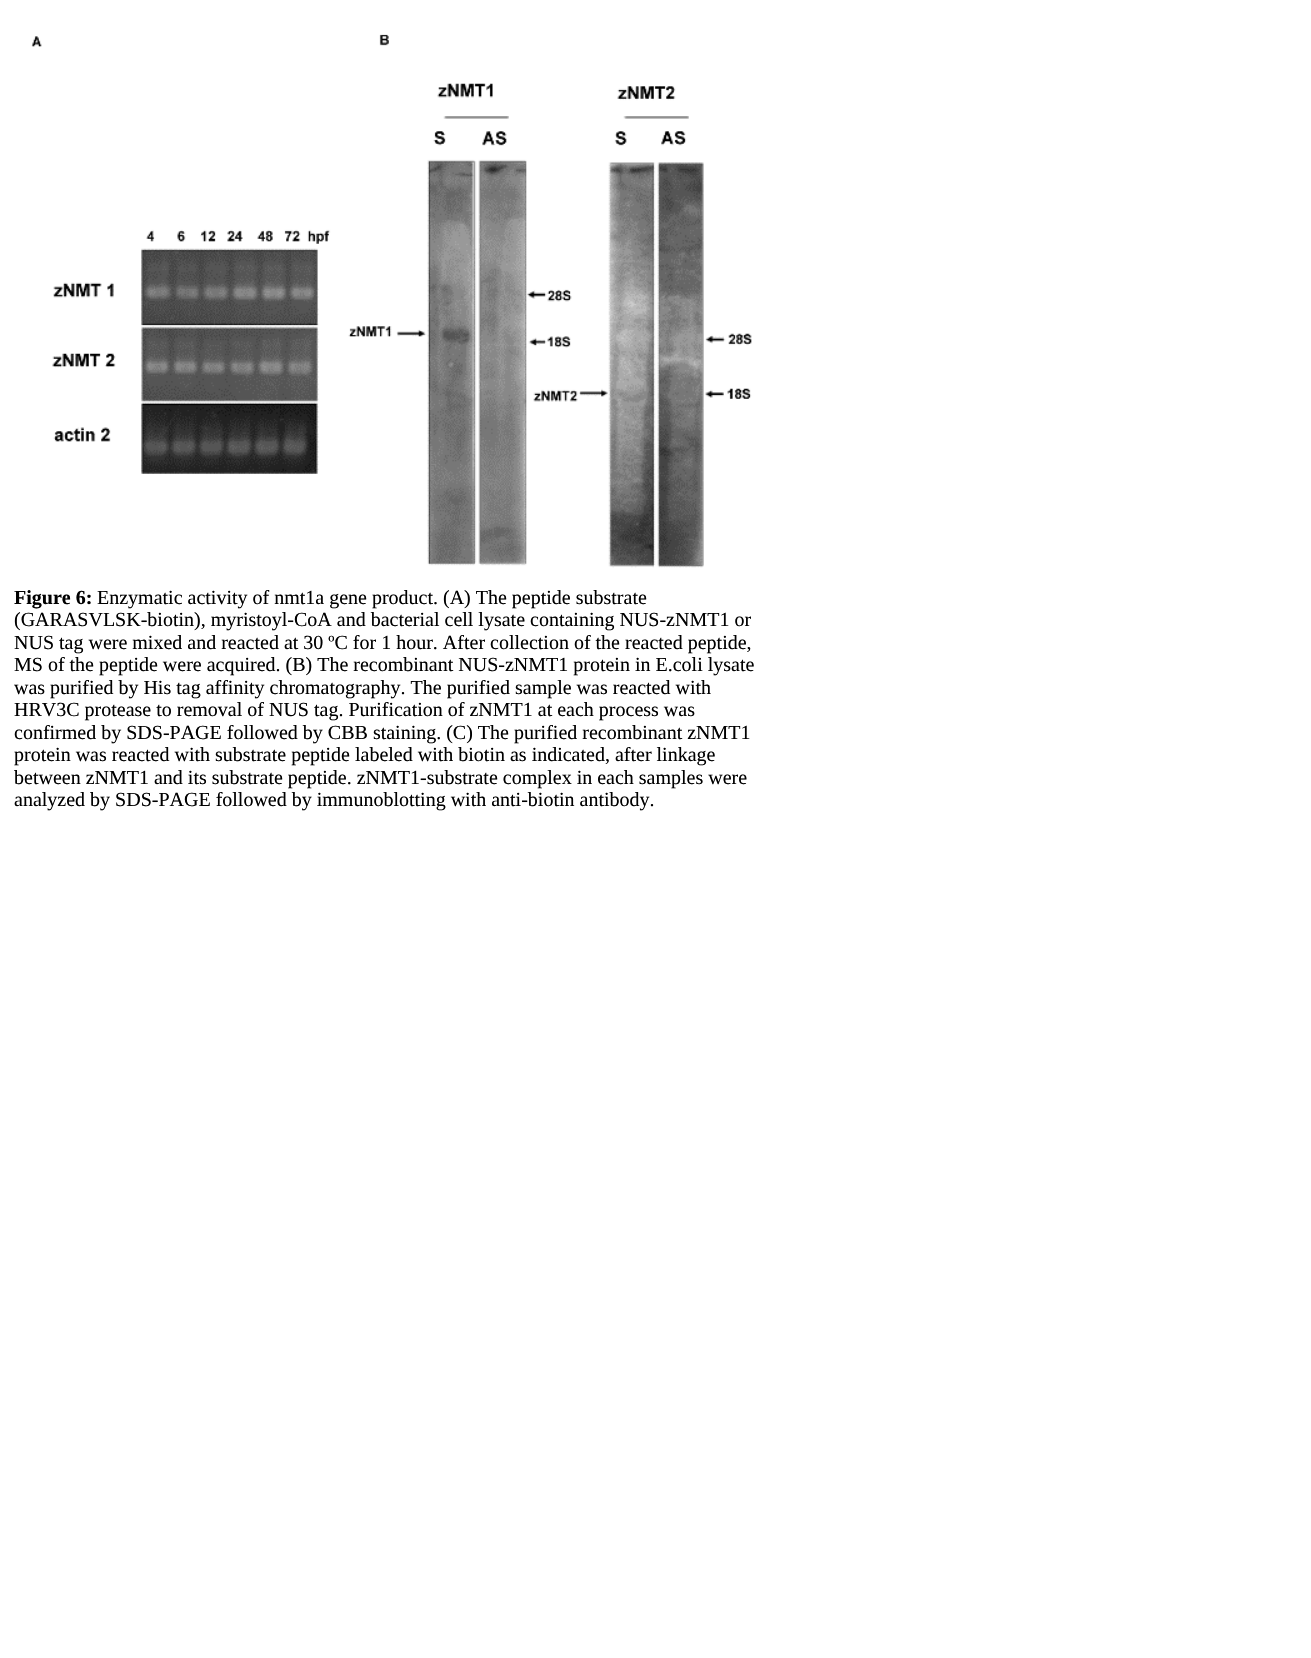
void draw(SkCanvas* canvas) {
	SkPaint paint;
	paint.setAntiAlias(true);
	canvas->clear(0xffffffff);
	canvas->drawImageRect(SkImages::DeferredFromEncodedData(SkData::MakeFromFileName("img1.png")), SkRect::MakeXYWH(31, 34, 721, 534), SkSamplingOptions());
	SkFont f1(fontMgr->matchFamilyStyle("Liberation Serif", SkFontStyle::Bold()), 20);
	f1.setSubpixel(true);
	paint.setColor(0xff000000);
	canvas->drawString("Figure 6:", 14, 604, f1, paint);
	SkFont f2(fontMgr->matchFamilyStyle("Liberation Serif", SkFontStyle::Normal()), 20);
	f2.setSubpixel(true);
	canvas->drawString("Enzymatic activity of nmt1a gene product. (A) The peptide substrate", 97, 604, f2, paint);
	canvas->drawString("(GARASVLSK-biotin), myristoyl-CoA and bacterial cell lysate containing NUS-zNMT1 or", 14, 626, f2, paint);
	canvas->drawString("NUS tag were mixed and reacted at 30 ºC for 1 hour. After collection of the reacted peptide,", 14, 649, f2, paint);
	canvas->drawString("MS of the peptide were acquired. (B) The recombinant NUS-zNMT1 protein in E.coli lysate", 14, 671, f2, paint);
	canvas->drawString("was purified by His tag affinity chromatography. The purified sample was reacted with", 14, 694, f2, paint);
	canvas->drawString("HRV3C protease to removal of NUS tag. Purification of zNMT1 at each process was", 14, 716, f2, paint);
	canvas->drawString("confirmed by SDS-PAGE followed by CBB staining. (C) The purified recombinant zNMT1", 14, 739, f2, paint);
	canvas->drawString("protein was reacted with substrate peptide labeled with biotin as indicated, after linkage", 14, 761, f2, paint);
	canvas->drawString("between zNMT1 and its substrate peptide. zNMT1-substrate complex in each samples were", 14, 784, f2, paint);
	canvas->drawString("analyzed by SDS-PAGE followed by immunoblotting with anti-biotin antibody.", 14, 806, f2, paint);
}
